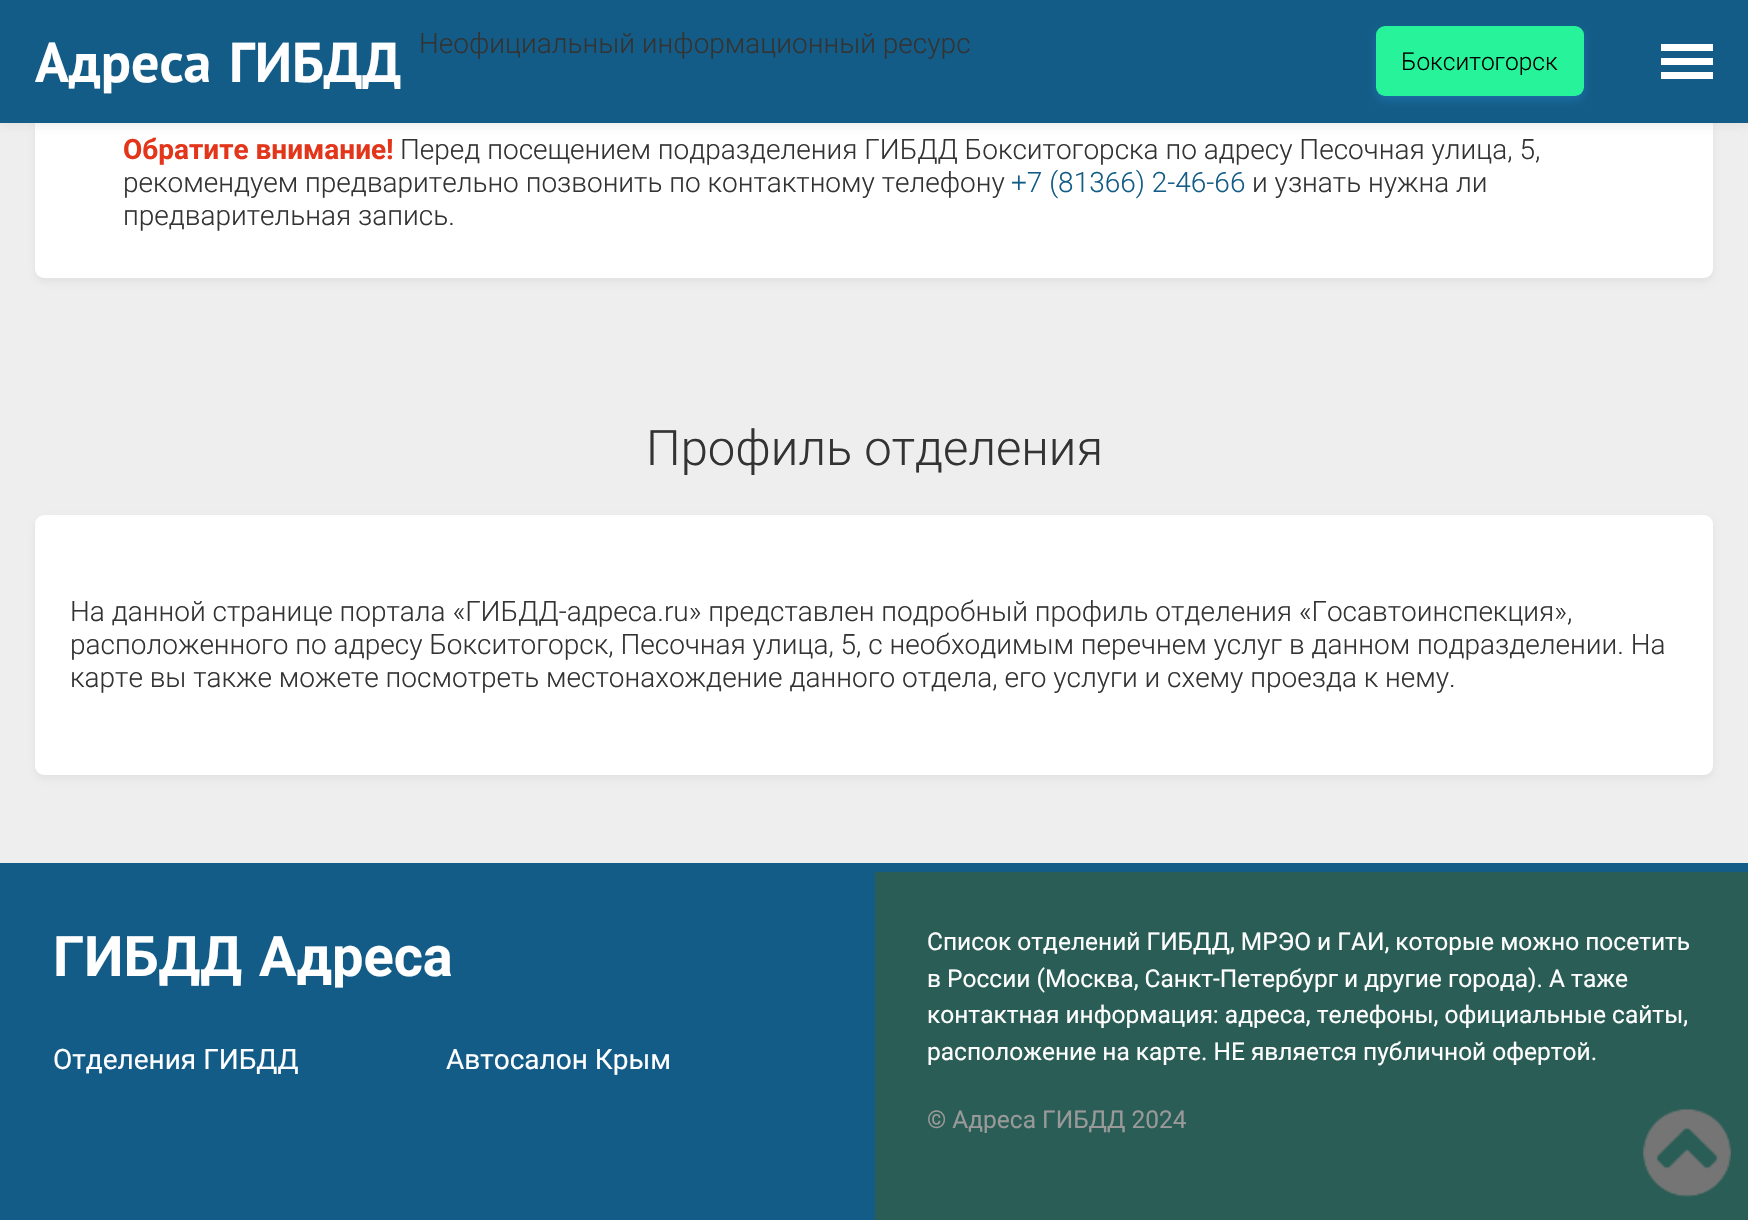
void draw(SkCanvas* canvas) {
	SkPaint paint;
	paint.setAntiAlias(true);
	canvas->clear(0xffeeeeee);
	paint.setColor(0x5ccacaca);
	paint.setMaskFilter(SkMaskFilter::MakeBlur(kNormal_SkBlurStyle, 3.5));
	canvas->drawRoundRect(SkRect::MakeXYWH(35, -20, 1678, 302), 9, 9, paint);
	paint.setMaskFilter(nullptr);
	paint.setColor(0xffffffff);
	canvas->drawRoundRect(SkRect::MakeXYWH(35, -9, 1678, 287), 9, 9, paint);
	paint.setColor(0x5ccacaca);
	paint.setMaskFilter(SkMaskFilter::MakeBlur(kNormal_SkBlurStyle, 4.5));
	canvas->drawRect(SkRect::MakeXYWH(0, 4, 1748, 122), paint);
	paint.setMaskFilter(nullptr);
	paint.setColor(0xff135c87);
	canvas->drawRect(SkRect::MakeXYWH(0, 0, 1748, 123), paint);
	SkFont f1(fontMgr->matchFamilyStyle("PT Sans", SkFontStyle::Bold()), 56);
	f1.setSubpixel(true);
	paint.setColor(0xffffffff);
	canvas->drawString("Адреса", 35, 82, f1, paint);
	canvas->drawString("ГИБДД", 229, 82, f1, paint);
	SkFont f2(fontMgr->matchFamilyStyle("Roboto", SkFontStyle(300, SkFontStyle::kNormal_Width, SkFontStyle::kUpright_Slant)), 28);
	f2.setSubpixel(true);
	paint.setColor(0xff333333);
	canvas->drawString("Неофициальный информационный ресурс", 419, 53, f2, paint);
	paint.setColor(0x592b8fd9);
	paint.setMaskFilter(SkMaskFilter::MakeBlur(kNormal_SkBlurStyle, 4.5));
	canvas->drawRoundRect(SkRect::MakeXYWH(1376, 30, 208, 70), 9, 9, paint);
	paint.setMaskFilter(nullptr);
	paint.setColor(0xff26f39a);
	canvas->drawRoundRect(SkRect::MakeXYWH(1376, 26, 208, 70), 9, 9, paint);
	SkFont f3(fontMgr->matchFamilyStyle("Roboto", SkFontStyle(300, SkFontStyle::kNormal_Width, SkFontStyle::kUpright_Slant)), 24.5);
	f3.setSubpixel(true);
	paint.setColor(0xff000000);
	canvas->drawString("Бокситогорск", 1401, 70, f3, paint);
	paint.setColor(0xffffffff);
	canvas->drawRect(SkRect::MakeXYWH(1661, 44, 52, 7), paint);
	canvas->drawRect(SkRect::MakeXYWH(1661, 58, 52, 7), paint);
	canvas->drawRect(SkRect::MakeXYWH(1661, 72, 52, 7), paint);
	SkFont f4(fontMgr->matchFamilyStyle("Roboto", SkFontStyle::Bold()), 28);
	f4.setSubpixel(true);
	paint.setColor(0xffe3351a);
	canvas->drawString("Обратите внимание!", 123, 159, f4, paint);
	paint.setColor(0xff333333);
	canvas->drawString("Перед посещением подразделения ГИБДД Бокситогорска по адресу Песочная улица, 5,", 400, 159, f2, paint);
	canvas->drawString("рекомендуем предварительно позвонить по контактному телефону", 123, 192, f2, paint);
	paint.setColor(0xff135c87);
	canvas->drawString("+7 (81366) 2-46-66", 1011, 192, f2, paint);
	paint.setColor(0xff333333);
	canvas->drawString("и узнать нужна ли", 1252, 192, f2, paint);
	canvas->drawString("предварительная запись.", 123, 225, f2, paint);
	SkFont f5(fontMgr->matchFamilyStyle("Roboto", SkFontStyle(300, SkFontStyle::kNormal_Width, SkFontStyle::kUpright_Slant)), 49);
	f5.setSubpixel(true);
	canvas->drawString("Профиль отделения", 646, 465, f5, paint);
	paint.setColor(0x5ccacaca);
	paint.setMaskFilter(SkMaskFilter::MakeBlur(kNormal_SkBlurStyle, 3.5));
	canvas->drawRoundRect(SkRect::MakeXYWH(35, 518, 1678, 261), 9, 9, paint);
	paint.setMaskFilter(nullptr);
	paint.setColor(0xffffffff);
	canvas->drawRoundRect(SkRect::MakeXYWH(35, 515, 1678, 260), 9, 9, paint);
	paint.setColor(0xff333333);
	canvas->drawString("На данной странице портала «ГИБДД-адреса.ru» представлен подробный профиль отделения «Госавтоинспекция»,", 70, 621, f2, paint);
	canvas->drawString("расположенного по адресу Бокситогорск, Песочная улица, 5, с необходимым перечнем услуг в данном подразделении. На", 70, 654, f2, paint);
	canvas->drawString("карте вы также можете посмотреть местонахождение данного отдела, его услуги и схему проезда к нему.", 70, 687, f2, paint);
	paint.setColor(0xff135c87);
	canvas->drawRect(SkRect::MakeXYWH(0, 863, 1748, 9), paint);
	canvas->drawRect(SkRect::MakeXYWH(0, 872, 875, 348), paint);
	SkFont f6(fontMgr->matchFamilyStyle("Roboto", SkFontStyle::Bold()), 56);
	f6.setSubpixel(true);
	paint.setColor(0xffffffff);
	canvas->drawString("ГИБДД", 53, 976, f6, paint);
	canvas->drawString("Адреса", 259, 976, f6, paint);
	SkFont f7(fontMgr->matchFamilyStyle("Roboto", SkFontStyle::Normal()), 28);
	f7.setSubpixel(true);
	canvas->drawString("Отделения ГИБДД", 53, 1069, f7, paint);
	canvas->drawString("Автосалон Крым", 446, 1069, f7, paint);
	paint.setColor(0xff295d55);
	canvas->drawRect(SkRect::MakeXYWH(875, 872, 873, 348), paint);
	SkFont f8(fontMgr->matchFamilyStyle("Roboto", SkFontStyle::Normal()), 24.5);
	f8.setSubpixel(true);
	paint.setColor(0xffffffff);
	canvas->drawString("Список отделений ГИБДД, МРЭО и ГАИ, которые можно посетить", 927, 950, f8, paint);
	canvas->drawString("в России (Москва, Санкт-Петербург и другие города). А таже", 927, 987, f8, paint);
	canvas->drawString("контактная информация: адреса, телефоны, официальные сайты,", 927, 1023, f8, paint);
	canvas->drawString("расположение на карте. НЕ является публичной офертой.", 927, 1060, f8, paint);
	paint.setColor(0xff999999);
	canvas->drawString("© Адреса ГИБДД 2024", 927, 1128, f8, paint);
	canvas->drawImageRect(SkImages::DeferredFromEncodedData(SkData::MakeFromFileName("img1.png")), SkRect::MakeXYWH(1643, 1109, 88, 88), SkSamplingOptions());
}
